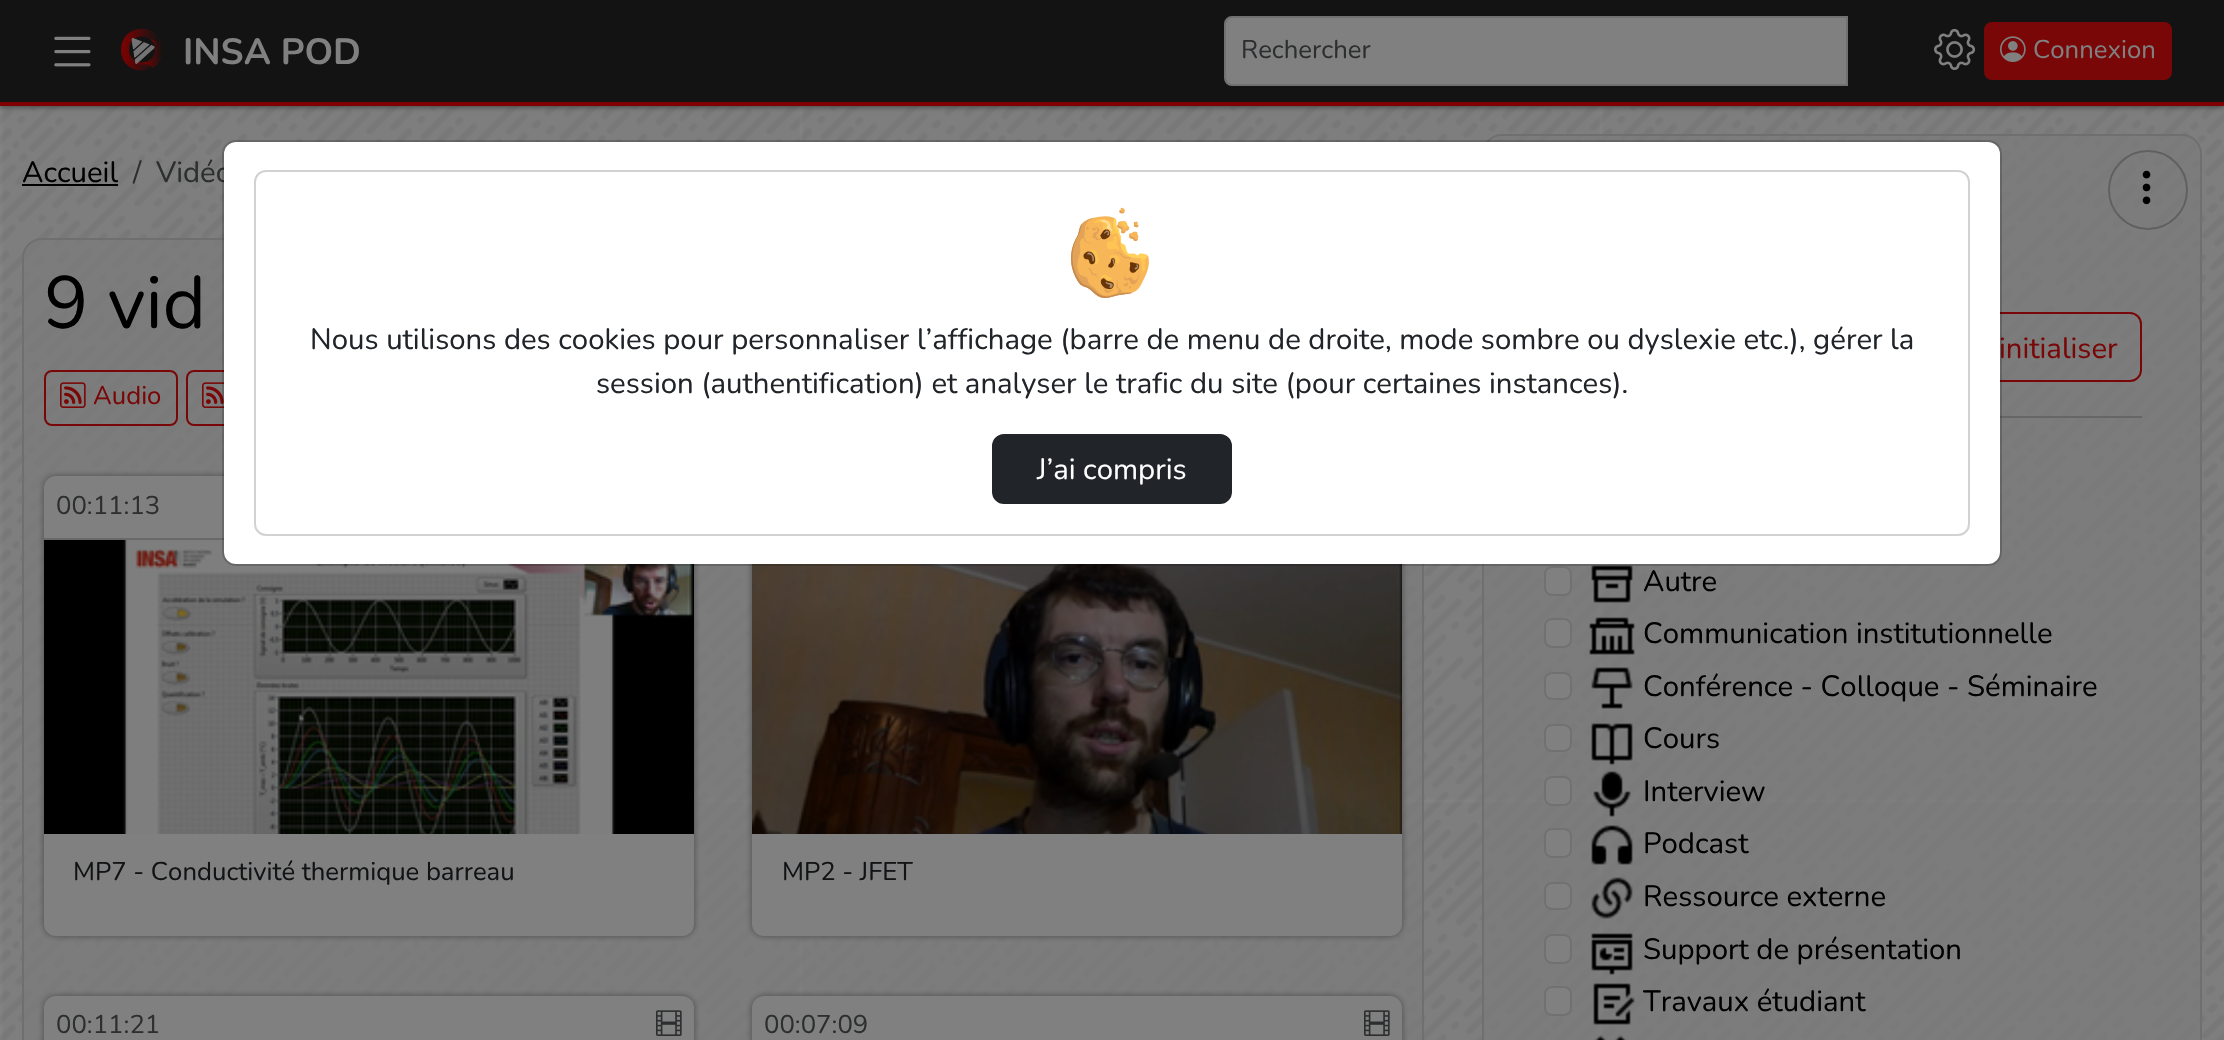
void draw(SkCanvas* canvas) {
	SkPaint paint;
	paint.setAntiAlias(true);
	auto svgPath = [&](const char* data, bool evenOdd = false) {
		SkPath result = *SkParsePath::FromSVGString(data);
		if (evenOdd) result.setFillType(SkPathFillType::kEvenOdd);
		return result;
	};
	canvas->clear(0xffffffff);
	canvas->drawImageRect(SkImages::DeferredFromEncodedData(SkData::MakeFromFileName("img1.png")), SkRect::MakeXYWH(0, 106, 2224, 934), SkSamplingOptions());
	paint.setColor(0x3d000000);
	paint.setMaskFilter(SkMaskFilter::MakeBlur(kNormal_SkBlurStyle, 2));
	canvas->drawRect(SkRect::MakeXYWH(0, 2, 2224, 106), paint);
	paint.setMaskFilter(nullptr);
	paint.setColor(0x1f000000);
	paint.setMaskFilter(SkMaskFilter::MakeBlur(kNormal_SkBlurStyle, 3));
	canvas->drawRect(SkRect::MakeXYWH(0, 2, 2224, 106), paint);
	paint.setMaskFilter(nullptr);
	paint.setColor(0xff131313);
	canvas->drawRect(SkRect::MakeXYWH(0, 0, 2224, 102), paint);
	paint.setColor(0xff800000);
	canvas->drawRect(SkRect::MakeXYWH(0, 102, 2224, 4), paint);
	canvas->drawImageRect(SkImages::DeferredFromEncodedData(SkData::MakeFromFileName("img2.png")), SkRect::MakeXYWH(54, 36, 37, 31), SkSamplingOptions());
	canvas->drawImageRect(SkImages::DeferredFromEncodedData(SkData::MakeFromFileName("img3.png")), SkRect::MakeXYWH(121, 28, 41, 43), SkSamplingOptions());
	SkFont f1(fontMgr->matchFamilyStyle("Nunito", SkFontStyle::Bold()), 36.5);
	f1.setSubpixel(true);
	paint.setColor(0xff808080);
	canvas->drawString("INSA POD", 183, 64, f1, paint);
	canvas->drawPath(svgPath("M1231 18H1846V84H1231C1228 84 1226 82 1226 79V23C1226 20 1228 18 1231 18Z"), paint);
	paint.setStroke(true);
	paint.setStrokeWidth(2);
	paint.setColor(0xff6f7173);
	canvas->drawPath(svgPath("M1232 17H1847V85H1232C1228 85 1225 82 1225 78V24C1225 20 1228 17 1232 17Z"), paint);
	SkFont f2(fontMgr->matchFamilyStyle("Nunito", SkFontStyle::Normal()), 25.7);
	f2.setSubpixel(true);
	paint.setStroke(false);
	paint.setColor(0xff2c2e2f);
	canvas->drawString("Rechercher", 1241, 58, f2, paint);
	canvas->drawImageRect(SkImages::DeferredFromEncodedData(SkData::MakeFromFileName("img4.png")), SkRect::MakeXYWH(1934, 28, 42, 42), SkSamplingOptions());
	paint.setColor(0xff790707);
	canvas->drawRoundRect(SkRect::MakeXYWH(1985, 23, 186, 56), 7, 7, paint);
	paint.setStroke(true);
	canvas->drawRoundRect(SkRect::MakeXYWH(1985, 23, 186, 56), 7, 7, paint);
	canvas->drawImageRect(SkImages::DeferredFromEncodedData(SkData::MakeFromFileName("img5.png")), SkRect::MakeXYWH(2000, 36, 26, 26), SkSamplingOptions());
	paint.setStroke(false);
	paint.setColor(0xff808080);
	canvas->drawString("Connexion", 2033, 58, f2, paint);
	SkFont f3(fontMgr->matchFamilyStyle("Nunito", SkFontStyle::Normal()), 29.33);
	f3.setSubpixel(true);
	paint.setColor(0xff000000);
	canvas->drawString("Accueil", 22, 182, f3, paint);
	canvas->drawRect(SkRect::MakeXYWH(22, 184, 96, 2), paint);
	paint.setColor(0xff2c2e2f);
	canvas->drawString("/", 133, 182, f3, paint);
	canvas->drawString("Vidéo", 156, 182, f3, paint);
	paint.setColor(0x947b7b7b);
	canvas->drawRoundRect(SkRect::MakeXYWH(1483, 135, 718, 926), 19, 19, paint);
	paint.setStroke(true);
	paint.setColor(0xff6f6f6f);
	canvas->drawRoundRect(SkRect::MakeXYWH(1483, 135, 718, 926), 19, 19, paint);
	paint.setColor(0xff606060);
	canvas->drawCircle(2148, 190, 39, paint);
	canvas->drawImageRect(SkImages::DeferredFromEncodedData(SkData::MakeFromFileName("img6.png")), SkRect::MakeXYWH(2142, 170, 9, 35), SkSamplingOptions());
	paint.setStroke(false);
	paint.setColor(0x947b7b7b);
	canvas->drawRoundRect(SkRect::MakeXYWH(23, 239, 1400, 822), 19, 19, paint);
	paint.setStroke(true);
	paint.setColor(0xff6f6f6f);
	canvas->drawRoundRect(SkRect::MakeXYWH(23, 239, 1400, 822), 19, 19, paint);
	SkFont f4(fontMgr->matchFamilyStyle("Nunito", SkFontStyle::Normal()), 74);
	f4.setSubpixel(true);
	paint.setStroke(false);
	paint.setColor(0xff000000);
	canvas->drawString("9 vid", 44, 328, f4, paint);
	paint.setStroke(true);
	paint.setColor(0xff790707);
	canvas->drawRoundRect(SkRect::MakeXYWH(45, 371, 132, 54), 7, 7, paint);
	canvas->drawImageRect(SkImages::DeferredFromEncodedData(SkData::MakeFromFileName("img7.png")), SkRect::MakeXYWH(60, 382, 26, 26), SkSamplingOptions());
	paint.setStroke(false);
	canvas->drawString("Audio", 93, 404, f2, paint);
	paint.setStroke(true);
	canvas->drawRoundRect(SkRect::MakeXYWH(187, 371, 130, 54), 7, 7, paint);
	canvas->drawImageRect(SkImages::DeferredFromEncodedData(SkData::MakeFromFileName("img8.png")), SkRect::MakeXYWH(202, 382, 22, 26), SkSamplingOptions());
	paint.setStroke(false);
	paint.setColor(0x3b000000);
	paint.setMaskFilter(SkMaskFilter::MakeBlur(kNormal_SkBlurStyle, 3));
	canvas->drawRoundRect(SkRect::MakeXYWH(44, 476, 650, 460), 12, 12, paint);
	paint.setMaskFilter(nullptr);
	paint.setColor(0x29000000);
	paint.setMaskFilter(SkMaskFilter::MakeBlur(kNormal_SkBlurStyle, 3));
	canvas->drawRoundRect(SkRect::MakeXYWH(44, 476, 650, 460), 12, 12, paint);
	paint.setMaskFilter(nullptr);
	paint.setColor(0xff808080);
	canvas->drawRoundRect(SkRect::MakeXYWH(44, 476, 650, 460), 12, 12, paint);
	paint.setColor(0xff696969);
	canvas->drawRect(SkRect::MakeXYWH(44, 538, 180, 2), paint);
	paint.setColor(0xff2c2e2f);
	canvas->drawString("00:11:13", 56, 514, f2, paint);
	paint.setColor(0xff000000);
	canvas->drawRect(SkRect::MakeXYWH(44, 540, 650, 294), paint);
	canvas->drawImageRect(SkImages::DeferredFromEncodedData(SkData::MakeFromFileName("img9.png")), SkRect::MakeXYWH(123, 540, 570, 294), SkSamplingOptions());
	paint.setColor(0xff111315);
	canvas->drawString("MP7 - Conductivité thermique barreau", 73, 880, f2, paint);
	paint.setColor(0x3b000000);
	paint.setMaskFilter(SkMaskFilter::MakeBlur(kNormal_SkBlurStyle, 3));
	canvas->drawRoundRect(SkRect::MakeXYWH(752, 476, 650, 460), 12, 12, paint);
	paint.setMaskFilter(nullptr);
	paint.setColor(0x29000000);
	paint.setMaskFilter(SkMaskFilter::MakeBlur(kNormal_SkBlurStyle, 3));
	canvas->drawRoundRect(SkRect::MakeXYWH(752, 476, 650, 460), 12, 12, paint);
	paint.setMaskFilter(nullptr);
	paint.setColor(0xff808080);
	canvas->drawRoundRect(SkRect::MakeXYWH(752, 476, 650, 460), 12, 12, paint);
	canvas->drawImageRect(SkImages::DeferredFromEncodedData(SkData::MakeFromFileName("img10.png")), SkRect::MakeXYWH(752, 564, 650, 270), SkSamplingOptions());
	paint.setColor(0xff111315);
	canvas->drawString("MP2 - JFET", 782, 880, f2, paint);
	paint.setColor(0x3b000000);
	paint.setMaskFilter(SkMaskFilter::MakeBlur(kNormal_SkBlurStyle, 3));
	canvas->drawRoundRect(SkRect::MakeXYWH(44, 996, 650, 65), 12, 12, paint);
	paint.setMaskFilter(nullptr);
	paint.setColor(0x29000000);
	paint.setMaskFilter(SkMaskFilter::MakeBlur(kNormal_SkBlurStyle, 3));
	canvas->drawRoundRect(SkRect::MakeXYWH(44, 996, 650, 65), 12, 12, paint);
	paint.setMaskFilter(nullptr);
	paint.setColor(0xff808080);
	canvas->drawRoundRect(SkRect::MakeXYWH(44, 996, 650, 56), 12, 12, paint);
	paint.setColor(0xff2c2e2f);
	canvas->drawString("00:11:21", 56, 1033, f2, paint);
	canvas->drawImageRect(SkImages::DeferredFromEncodedData(SkData::MakeFromFileName("img11.png")), SkRect::MakeXYWH(656, 1010, 26, 26), SkSamplingOptions());
	paint.setColor(0x3b000000);
	paint.setMaskFilter(SkMaskFilter::MakeBlur(kNormal_SkBlurStyle, 3));
	canvas->drawRoundRect(SkRect::MakeXYWH(752, 996, 650, 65), 12, 12, paint);
	paint.setMaskFilter(nullptr);
	paint.setColor(0x29000000);
	paint.setMaskFilter(SkMaskFilter::MakeBlur(kNormal_SkBlurStyle, 3));
	canvas->drawRoundRect(SkRect::MakeXYWH(752, 996, 650, 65), 12, 12, paint);
	paint.setMaskFilter(nullptr);
	paint.setColor(0xff808080);
	canvas->drawRoundRect(SkRect::MakeXYWH(752, 996, 650, 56), 12, 12, paint);
	paint.setColor(0xff2c2e2f);
	canvas->drawString("00:07:09", 764, 1033, f2, paint);
	canvas->drawImageRect(SkImages::DeferredFromEncodedData(SkData::MakeFromFileName("img11.png")), SkRect::MakeXYWH(1364, 1010, 26, 26), SkSamplingOptions());
	paint.setStroke(true);
	paint.setColor(0xff790707);
	canvas->drawRoundRect(SkRect::MakeXYWH(1941, 313, 200, 68), 11, 11, paint);
	paint.setStroke(false);
	canvas->drawString("initialiser", 1999, 358, f3, paint);
	paint.setColor(0xff666666);
	canvas->drawRect(SkRect::MakeXYWH(2000, 416, 142, 2), paint);
	paint.setColor(0xff808080);
	canvas->drawRoundRect(SkRect::MakeXYWH(1545, 567, 26, 28), 7, 7, paint);
	paint.setStroke(true);
	paint.setColor(0xff6f7173);
	canvas->drawRoundRect(SkRect::MakeXYWH(1545, 567, 26, 28), 7, 7, paint);
	canvas->drawImageRect(SkImages::DeferredFromEncodedData(SkData::MakeFromFileName("img12.png")), SkRect::MakeXYWH(1591, 565, 42, 38), SkSamplingOptions());
	paint.setStroke(false);
	paint.setColor(0xff000000);
	canvas->drawString("Autre", 1643, 591, f3, paint);
	paint.setColor(0xff808080);
	canvas->drawRoundRect(SkRect::MakeXYWH(1545, 619, 26, 28), 7, 7, paint);
	paint.setStroke(true);
	paint.setColor(0xff6f7173);
	canvas->drawRoundRect(SkRect::MakeXYWH(1545, 619, 26, 28), 7, 7, paint);
	canvas->drawImageRect(SkImages::DeferredFromEncodedData(SkData::MakeFromFileName("img13.png")), SkRect::MakeXYWH(1589, 617, 46, 38), SkSamplingOptions());
	paint.setStroke(false);
	paint.setColor(0xff000000);
	canvas->drawString("Communication institutionnelle", 1643, 643, f3, paint);
	paint.setColor(0xff808080);
	canvas->drawRoundRect(SkRect::MakeXYWH(1545, 673, 26, 26), 7, 7, paint);
	paint.setStroke(true);
	paint.setColor(0xff6f7173);
	canvas->drawRoundRect(SkRect::MakeXYWH(1545, 673, 26, 26), 7, 7, paint);
	canvas->drawImageRect(SkImages::DeferredFromEncodedData(SkData::MakeFromFileName("img14.png")), SkRect::MakeXYWH(1591, 667, 42, 42), SkSamplingOptions());
	paint.setStroke(false);
	paint.setColor(0xff000000);
	canvas->drawString("Conférence - Colloque - Séminaire", 1643, 696, f3, paint);
	paint.setColor(0xff808080);
	canvas->drawRoundRect(SkRect::MakeXYWH(1545, 725, 26, 26), 7, 7, paint);
	paint.setStroke(true);
	paint.setColor(0xff6f7173);
	canvas->drawRoundRect(SkRect::MakeXYWH(1545, 725, 26, 26), 7, 7, paint);
	canvas->drawImageRect(SkImages::DeferredFromEncodedData(SkData::MakeFromFileName("img15.png")), SkRect::MakeXYWH(1591, 723, 42, 42), SkSamplingOptions());
	paint.setStroke(false);
	paint.setColor(0xff000000);
	canvas->drawString("Cours", 1643, 748, f3, paint);
	paint.setColor(0xff808080);
	canvas->drawRoundRect(SkRect::MakeXYWH(1545, 777, 26, 28), 7, 7, paint);
	paint.setStroke(true);
	paint.setColor(0xff6f7173);
	canvas->drawRoundRect(SkRect::MakeXYWH(1545, 777, 26, 28), 7, 7, paint);
	canvas->drawImageRect(SkImages::DeferredFromEncodedData(SkData::MakeFromFileName("img16.png")), SkRect::MakeXYWH(1593, 771, 38, 46), SkSamplingOptions());
	paint.setStroke(false);
	paint.setColor(0xff000000);
	canvas->drawString("Interview", 1643, 801, f3, paint);
	paint.setColor(0xff808080);
	canvas->drawRoundRect(SkRect::MakeXYWH(1545, 829, 26, 28), 7, 7, paint);
	paint.setStroke(true);
	paint.setColor(0xff6f7173);
	canvas->drawRoundRect(SkRect::MakeXYWH(1545, 829, 26, 28), 7, 7, paint);
	canvas->drawImageRect(SkImages::DeferredFromEncodedData(SkData::MakeFromFileName("img17.png")), SkRect::MakeXYWH(1591, 825, 42, 40), SkSamplingOptions());
	paint.setStroke(false);
	paint.setColor(0xff000000);
	canvas->drawString("Podcast", 1643, 853, f3, paint);
	paint.setColor(0xff808080);
	canvas->drawRoundRect(SkRect::MakeXYWH(1545, 883, 26, 26), 7, 7, paint);
	paint.setStroke(true);
	paint.setColor(0xff6f7173);
	canvas->drawRoundRect(SkRect::MakeXYWH(1545, 883, 26, 26), 7, 7, paint);
	canvas->drawImageRect(SkImages::DeferredFromEncodedData(SkData::MakeFromFileName("img18.png")), SkRect::MakeXYWH(1591, 877, 42, 42), SkSamplingOptions());
	paint.setStroke(false);
	paint.setColor(0xff000000);
	canvas->drawString("Ressource externe", 1643, 906, f3, paint);
	paint.setColor(0xff808080);
	canvas->drawRoundRect(SkRect::MakeXYWH(1545, 935, 26, 28), 7, 7, paint);
	paint.setStroke(true);
	paint.setColor(0xff6f7173);
	canvas->drawRoundRect(SkRect::MakeXYWH(1545, 935, 26, 28), 7, 7, paint);
	canvas->drawImageRect(SkImages::DeferredFromEncodedData(SkData::MakeFromFileName("img19.png")), SkRect::MakeXYWH(1591, 933, 42, 42), SkSamplingOptions());
	paint.setStroke(false);
	paint.setColor(0xff000000);
	canvas->drawString("Support de présentation", 1643, 959, f3, paint);
	paint.setColor(0xff808080);
	canvas->drawRoundRect(SkRect::MakeXYWH(1545, 987, 26, 28), 7, 7, paint);
	paint.setStroke(true);
	paint.setColor(0xff6f7173);
	canvas->drawRoundRect(SkRect::MakeXYWH(1545, 987, 26, 28), 7, 7, paint);
	canvas->drawImageRect(SkImages::DeferredFromEncodedData(SkData::MakeFromFileName("img20.png")), SkRect::MakeXYWH(1593, 983, 42, 42), SkSamplingOptions());
	paint.setStroke(false);
	paint.setColor(0xff000000);
	canvas->drawString("Travaux étudiant", 1643, 1011, f3, paint);
	canvas->drawImageRect(SkImages::DeferredFromEncodedData(SkData::MakeFromFileName("img21.png")), SkRect::MakeXYWH(1594, 1035, 33, 5), SkSamplingOptions());
	paint.setColor(0xffffffff);
	canvas->drawRoundRect(SkRect::MakeXYWH(224, 142, 1776, 422), 12, 12, paint);
	paint.setStroke(true);
	paint.setColor(0x2e000000);
	canvas->drawRoundRect(SkRect::MakeXYWH(223, 141, 1778, 424), 13, 13, paint);
	paint.setColor(0xffd2d2d2);
	canvas->drawRoundRect(SkRect::MakeXYWH(255, 171, 1714, 364), 11, 11, paint);
	canvas->drawImageRect(SkImages::DeferredFromEncodedData(SkData::MakeFromFileName("img22.png")), SkRect::MakeXYWH(1071, 207, 78, 91), SkSamplingOptions());
	paint.setStroke(false);
	paint.setColor(0xff212529);
	canvas->drawString("Nous utilisons des cookies pour personnaliser l’affichage (barre de menu de droite, mode sombre ou dyslexie etc.), gérer la", 310, 349, f3, paint);
	canvas->drawString("session (authentification) et analyser le trafic du site (pour certaines instances).", 596, 393, f3, paint);
	canvas->drawRoundRect(SkRect::MakeXYWH(993, 435, 238, 68), 11, 11, paint);
	paint.setStroke(true);
	canvas->drawRoundRect(SkRect::MakeXYWH(993, 435, 238, 68), 11, 11, paint);
	paint.setStroke(false);
	paint.setColor(0xffffffff);
	canvas->drawString("J’ai compris", 1037, 479, f3, paint);
}
